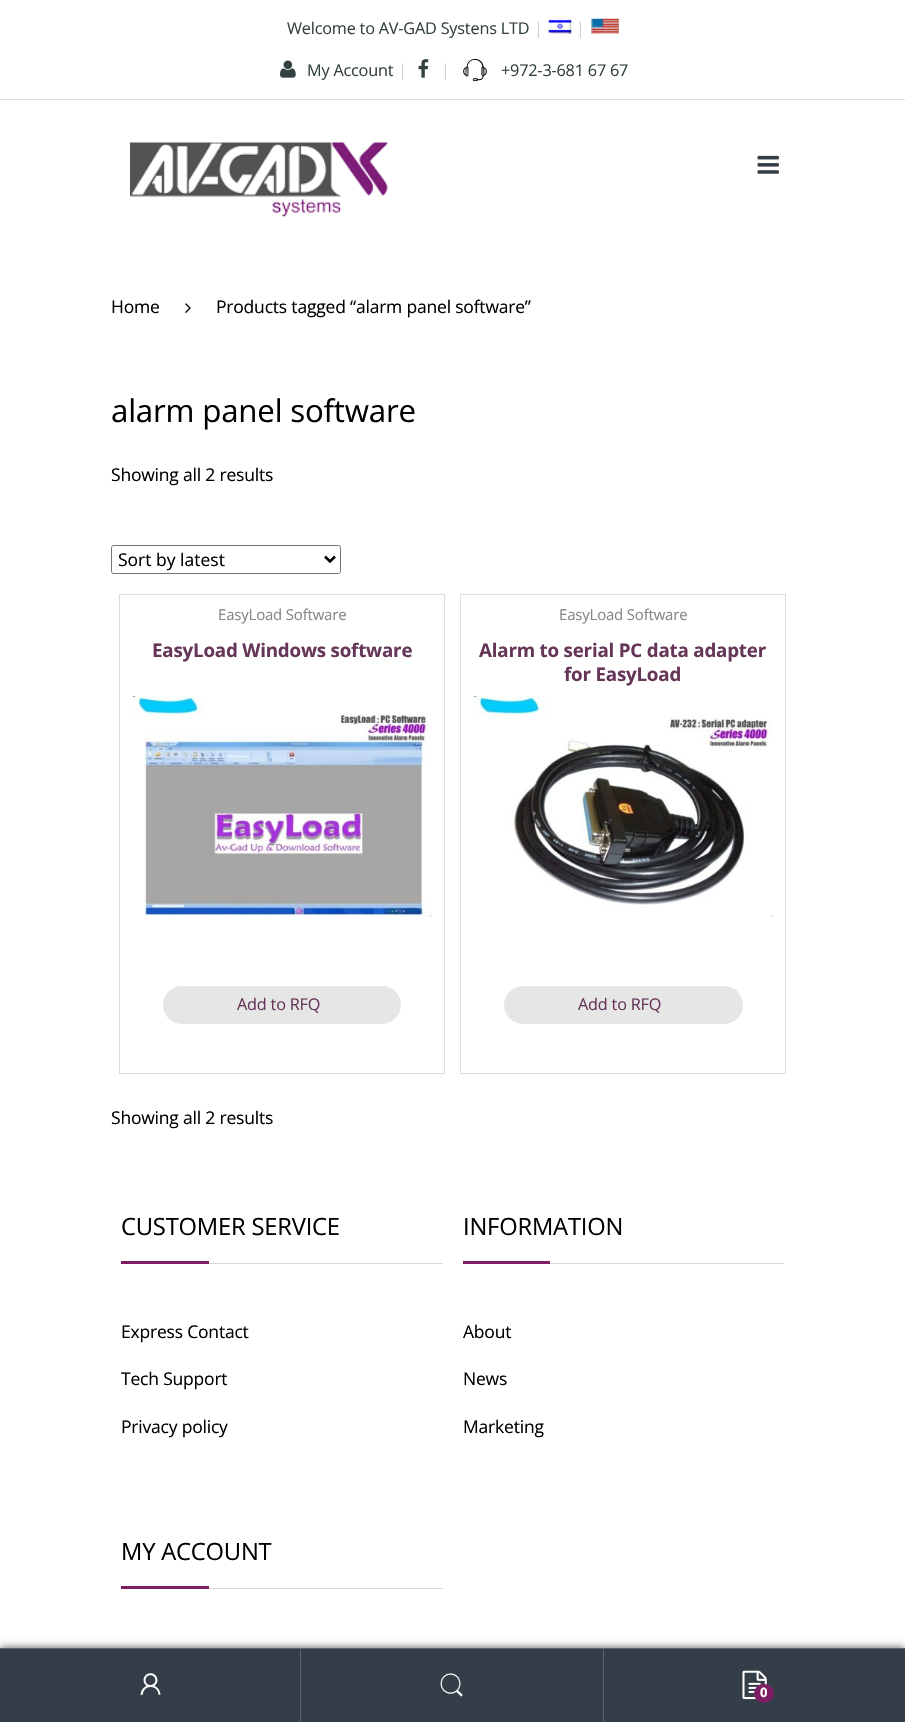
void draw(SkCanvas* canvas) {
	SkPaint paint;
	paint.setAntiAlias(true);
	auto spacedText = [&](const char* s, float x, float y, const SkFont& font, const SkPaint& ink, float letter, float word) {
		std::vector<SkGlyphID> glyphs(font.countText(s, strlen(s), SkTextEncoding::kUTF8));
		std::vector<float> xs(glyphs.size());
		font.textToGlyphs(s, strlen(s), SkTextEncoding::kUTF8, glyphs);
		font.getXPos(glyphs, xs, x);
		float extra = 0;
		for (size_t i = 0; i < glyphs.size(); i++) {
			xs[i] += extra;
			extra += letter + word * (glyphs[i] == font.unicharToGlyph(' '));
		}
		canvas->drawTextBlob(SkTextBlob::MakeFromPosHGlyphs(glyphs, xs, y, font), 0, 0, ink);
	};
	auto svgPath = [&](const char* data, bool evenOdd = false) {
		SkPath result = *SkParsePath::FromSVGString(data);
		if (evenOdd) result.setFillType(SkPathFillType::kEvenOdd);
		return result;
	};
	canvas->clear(0xffffffff);
	paint.setColor(0xffdddddd);
	canvas->drawRect(SkRect::MakeXYWH(0, 99, 905, 1), paint);
	SkFont f1(fontMgr->matchFamilyStyle("Open Sans", SkFontStyle::Normal()), 16.25);
	f1.setSubpixel(true);
	paint.setColor(0xff334141);
	spacedText("Welcome to AV-GAD Systens LTD", 287, 34, f1, paint, -0.2, 0);
	paint.setColor(0xffcad5d5);
	spacedText("|", 534, 34, f1, paint, -0.2, 0);
	canvas->drawImageRect(SkImages::DeferredFromEncodedData(SkData::MakeFromFileName("img1.png")), SkRect::MakeXYWH(548, 19, 24, 15), SkSamplingOptions());
	spacedText("|", 576, 34, f1, paint, -0.2, 0);
	canvas->drawImageRect(SkImages::DeferredFromEncodedData(SkData::MakeFromFileName("img2.png")), SkRect::MakeXYWH(591, 18, 28, 16), SkSamplingOptions());
	canvas->drawImageRect(SkImages::DeferredFromEncodedData(SkData::MakeFromFileName("img3.png")), SkRect::MakeXYWH(280, 60, 16, 18), SkSamplingOptions());
	paint.setColor(0xff334141);
	spacedText("My Account", 307, 76, f1, paint, -0.2, 0);
	paint.setColor(0xffcad5d5);
	spacedText("|", 398, 76, f1, paint, -0.2, 0);
	canvas->drawImageRect(SkImages::DeferredFromEncodedData(SkData::MakeFromFileName("img4.png")), SkRect::MakeXYWH(418, 59, 11, 19), SkSamplingOptions());
	spacedText("|", 441, 76, f1, paint, -0.2, 0);
	canvas->drawImageRect(SkImages::DeferredFromEncodedData(SkData::MakeFromFileName("img5.png")), SkRect::MakeXYWH(463, 58, 24, 24), SkSamplingOptions());
	paint.setColor(0xff334141);
	spacedText("+972-3-681 67 67", 501, 76, f1, paint, -0.2, 0);
	canvas->drawImageRect(SkImages::DeferredFromEncodedData(SkData::MakeFromFileName("img6.png")), SkRect::MakeXYWH(130, 142, 258, 75), SkSamplingOptions());
	canvas->drawImageRect(SkImages::DeferredFromEncodedData(SkData::MakeFromFileName("img7.png")), SkRect::MakeXYWH(757, 155, 22, 19), SkSamplingOptions());
	SkFont f2(fontMgr->matchFamilyStyle("Open Sans", SkFontStyle::Normal()), 17.5);
	f2.setSubpixel(true);
	paint.setColor(0xff000001);
	spacedText("Home", 111, 313, f2, paint, -0.2, 0);
	canvas->drawImageRect(SkImages::DeferredFromEncodedData(SkData::MakeFromFileName("img8.png")), SkRect::MakeXYWH(185, 303, 6, 10), SkSamplingOptions());
	spacedText("Products tagged “alarm panel software”", 216, 313, f2, paint, -0.2, 0);
	SkFont f3(fontMgr->matchFamilyStyle("Open Sans", SkFontStyle::Normal()), 31.25);
	f3.setSubpixel(true);
	spacedText("alarm panel software", 111, 422, f3, paint, -0.2, 0);
	spacedText("Showing all 2 results", 111, 481, f2, paint, -0.2, 0);
	paint.setStroke(true);
	paint.setStrokeWidth(1);
	paint.setColor(0xff767676);
	canvas->drawRoundRect(SkRect::MakeXYWH(111.5, 545.5, 229, 28), 2, 2, paint);
	paint.setStrokeWidth(2.5);
	paint.setColor(0xff000000);
	canvas->drawPath(svgPath("M325 556.5L330 561.5L335 556.5"), paint);
	paint.setStroke(false);
	paint.setColor(0xff000001);
	canvas->drawString("Sort by latest", 118, 566, f2, paint);
	paint.setStroke(true);
	paint.setStrokeWidth(1);
	paint.setColor(0xffdddddd);
	canvas->drawRect(SkRect::MakeXYWH(119.5, 594.5, 325, 479), paint);
	SkFont f4(fontMgr->matchFamilyStyle("Open Sans", SkFontStyle::Normal()), 15);
	f4.setSubpixel(true);
	paint.setStroke(false);
	paint.setColor(0xff878787);
	spacedText("EasyLoad Software", 218, 620, f4, paint, -0.2, 0);
	SkFont f5(fontMgr->matchFamilyStyle("Open Sans", SkFontStyle::Bold()), 18.75);
	f5.setSubpixel(true);
	paint.setColor(0xff653658);
	spacedText("EasyLoad Windows software", 152, 657, f5, paint, -0.2, 0);
	canvas->drawImageRect(SkImages::DeferredFromEncodedData(SkData::MakeFromFileName("img9.png")), SkRect::MakeXYWH(132, 696, 300, 221), SkSamplingOptions());
	paint.setColor(0xffe6e6e6);
	canvas->drawRoundRect(SkRect::MakeXYWH(163, 986, 238, 38), 19, 19, paint);
	paint.setColor(0xff653658);
	spacedText("Add to RFQ", 237, 1010, f1, paint, -0.2, 0);
	paint.setStroke(true);
	paint.setColor(0xffdddddd);
	canvas->drawRect(SkRect::MakeXYWH(460.5, 594.5, 325, 479), paint);
	paint.setStroke(false);
	paint.setColor(0xff878787);
	spacedText("EasyLoad Software", 559, 620, f4, paint, -0.2, 0);
	paint.setColor(0xff653658);
	spacedText("Alarm to serial PC data adapter", 479, 657, f5, paint, -0.2, 0);
	spacedText("for EasyLoad", 564, 681, f5, paint, -0.2, 0);
	canvas->drawImageRect(SkImages::DeferredFromEncodedData(SkData::MakeFromFileName("img10.png")), SkRect::MakeXYWH(473, 696, 300, 221), SkSamplingOptions());
	paint.setColor(0xffe6e6e6);
	canvas->drawRoundRect(SkRect::MakeXYWH(504, 986, 239, 38), 19, 19, paint);
	paint.setColor(0xff653658);
	spacedText("Add to RFQ", 578, 1010, f1, paint, -0.2, 0);
	paint.setColor(0xff000001);
	spacedText("Showing all 2 results", 111, 1124, f2, paint, -0.2, 0);
	paint.setColor(0xffdadada);
	canvas->drawRect(SkRect::MakeXYWH(209, 1263, 234, 1), paint);
	SkFont f6(fontMgr->matchFamilyStyle("Open Sans", SkFontStyle::Normal()), 23.75);
	f6.setSubpixel(true);
	paint.setColor(0xff000001);
	spacedText("CUSTOMER SERVICE", 121, 1235, f6, paint, -0.2, 0);
	paint.setColor(0xff7d1d64);
	canvas->drawRect(SkRect::MakeXYWH(121, 1261, 88, 3), paint);
	paint.setColor(0xff000001);
	spacedText("Express Contact", 121, 1338, f2, paint, -0.2, 0);
	spacedText("Tech Support", 121, 1385, f2, paint, -0.2, 0);
	spacedText("Privacy policy", 121, 1433, f2, paint, -0.2, 0);
	paint.setColor(0xffdadada);
	canvas->drawRect(SkRect::MakeXYWH(550, 1263, 234, 1), paint);
	paint.setColor(0xff000001);
	spacedText("INFORMATION", 463, 1235, f6, paint, -0.2, 0);
	paint.setColor(0xff7d1d64);
	canvas->drawRect(SkRect::MakeXYWH(463, 1261, 87, 3), paint);
	paint.setColor(0xff000001);
	spacedText("About", 463, 1338, f2, paint, -0.2, 0);
	spacedText("News", 463, 1385, f2, paint, -0.2, 0);
	spacedText("Marketing", 463, 1433, f2, paint, -0.2, 0);
	paint.setColor(0xffdadada);
	canvas->drawRect(SkRect::MakeXYWH(209, 1588, 234, 1), paint);
	paint.setColor(0xff000001);
	spacedText("MY ACCOUNT", 121, 1560, f6, paint, -0.2, 0);
	paint.setColor(0xff7d1d64);
	canvas->drawRect(SkRect::MakeXYWH(121, 1586, 88, 3), paint);
	paint.setColor(0xb3000000);
	paint.setMaskFilter(SkMaskFilter::MakeBlur(kNormal_SkBlurStyle, 4));
	canvas->drawRect(SkRect::MakeXYWH(0, 1648, 905, 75), paint);
	paint.setMaskFilter(nullptr);
	paint.setColor(0xff5c656d);
	canvas->drawRect(SkRect::MakeXYWH(0, 1648, 905, 1), paint);
	paint.setColor(0xff333e48);
	canvas->drawRect(SkRect::MakeXYWH(0, 1649, 300, 73), paint);
	paint.setColor(0xff5c656d);
	canvas->drawRect(SkRect::MakeXYWH(300, 1649, 1, 73), paint);
	canvas->drawImageRect(SkImages::DeferredFromEncodedData(SkData::MakeFromFileName("img11.png")), SkRect::MakeXYWH(140, 1673, 21, 22), SkSamplingOptions());
	paint.setColor(0xff333e48);
	canvas->drawRect(SkRect::MakeXYWH(301, 1649, 302, 73), paint);
	paint.setColor(0xff5c656d);
	canvas->drawRect(SkRect::MakeXYWH(603, 1649, 1, 73), paint);
	canvas->drawImageRect(SkImages::DeferredFromEncodedData(SkData::MakeFromFileName("img12.png")), SkRect::MakeXYWH(440, 1673, 23, 24), SkSamplingOptions());
	paint.setColor(0xff333e48);
	canvas->drawRect(SkRect::MakeXYWH(604, 1649, 301, 73), paint);
	canvas->drawImageRect(SkImages::DeferredFromEncodedData(SkData::MakeFromFileName("img13.png")), SkRect::MakeXYWH(742, 1670, 25, 30), SkSamplingOptions());
	paint.setColor(0xff7d1d64);
	canvas->drawRoundRect(SkRect::MakeXYWH(754, 1684, 20, 19), 9.5, 9.5, paint);
	SkFont f7(fontMgr->matchFamilyStyle("Open Sans", SkFontStyle::Bold()), 13);
	f7.setSubpixel(true);
	paint.setColor(0xffffffff);
	spacedText("0", 760, 1697, f7, paint, -0.2, 0);
}
